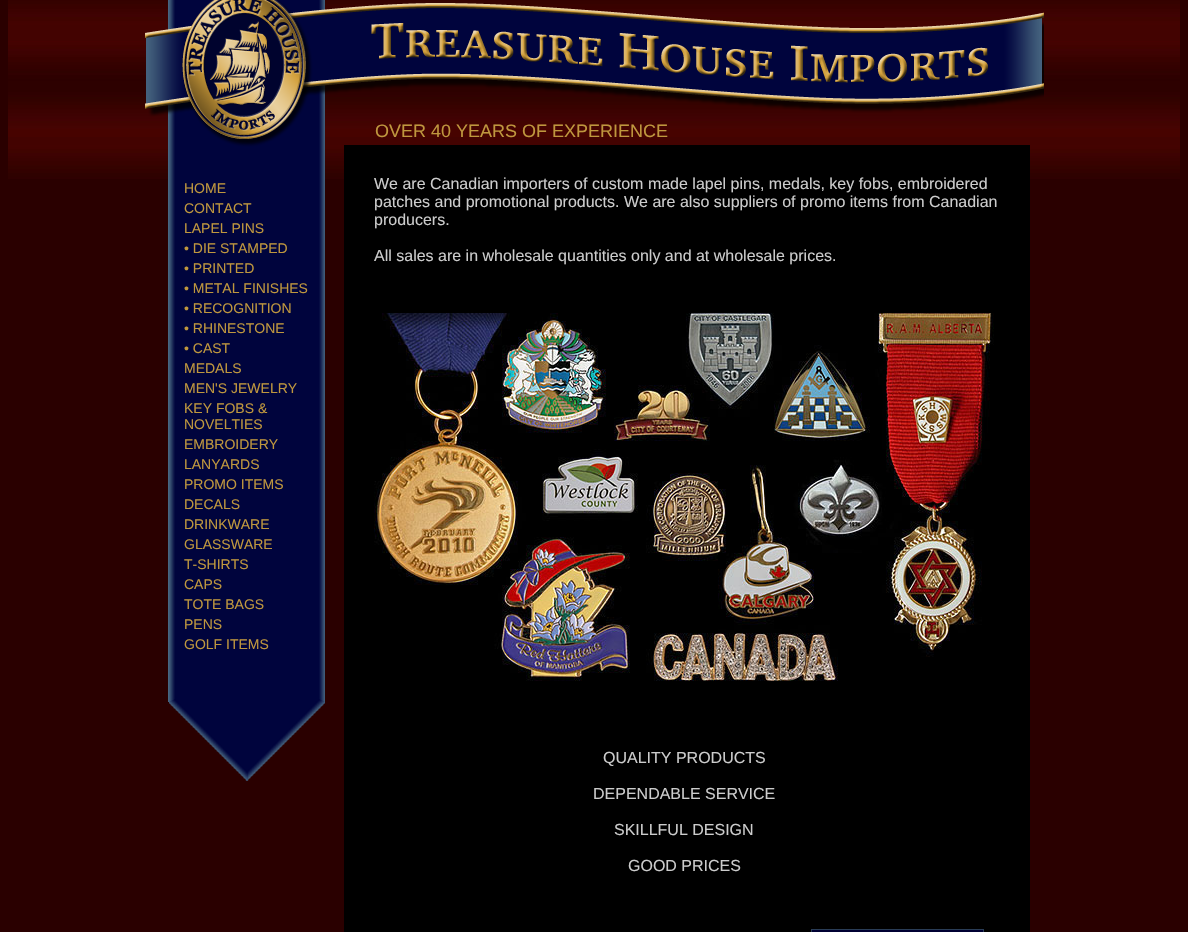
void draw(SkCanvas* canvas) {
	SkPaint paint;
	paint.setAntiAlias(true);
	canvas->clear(0xff2a0000);
	canvas->drawImageRect(SkImages::DeferredFromEncodedData(SkData::MakeFromFileName("img1.png")), SkRect::MakeXYWH(8, 0, 1172, 179), SkSamplingOptions());
	canvas->drawImageRect(SkImages::DeferredFromEncodedData(SkData::MakeFromFileName("img2.png")), SkRect::MakeXYWH(145, 0, 899, 145), SkSamplingOptions());
	SkFont f1(fontMgr->matchFamilyStyle("Liberation Sans", SkFontStyle::Normal()), 18);
	f1.setSubpixel(true);
	paint.setColor(0xffbf973e);
	canvas->drawString("OVER 40 YEARS OF EXPERIENCE", 375, 137, f1, paint);
	canvas->drawImageRect(SkImages::DeferredFromEncodedData(SkData::MakeFromFileName("img3.png")), SkRect::MakeXYWH(168, 145, 157, 636), SkSamplingOptions());
	SkFont f2(fontMgr->matchFamilyStyle("Liberation Sans", SkFontStyle::Normal()), 14);
	f2.setSubpixel(true);
	canvas->drawString("HOME", 184, 193, f2, paint);
	canvas->drawString("CONTACT", 184, 213, f2, paint);
	canvas->drawString("LAPEL PINS", 184, 233, f2, paint);
	canvas->drawString("• DIE STAMPED", 184, 253, f2, paint);
	canvas->drawString("• PRINTED", 184, 273, f2, paint);
	canvas->drawString("• METAL FINISHES", 184, 293, f2, paint);
	canvas->drawString("• RECOGNITION", 184, 313, f2, paint);
	canvas->drawString("• RHINESTONE", 184, 333, f2, paint);
	canvas->drawString("• CAST", 184, 353, f2, paint);
	canvas->drawString("MEDALS", 184, 373, f2, paint);
	canvas->drawString("MEN'S JEWELRY", 184, 393, f2, paint);
	canvas->drawString("KEY FOBS &", 184, 413, f2, paint);
	canvas->drawString("NOVELTIES", 184, 429, f2, paint);
	canvas->drawString("EMBROIDERY", 184, 449, f2, paint);
	canvas->drawString("LANYARDS", 184, 469, f2, paint);
	canvas->drawString("PROMO ITEMS", 184, 489, f2, paint);
	canvas->drawString("DECALS", 184, 509, f2, paint);
	canvas->drawString("DRINKWARE", 184, 529, f2, paint);
	canvas->drawString("GLASSWARE", 184, 549, f2, paint);
	canvas->drawString("T-SHIRTS", 184, 569, f2, paint);
	canvas->drawString("CAPS", 184, 589, f2, paint);
	canvas->drawString("TOTE BAGS", 184, 609, f2, paint);
	canvas->drawString("PENS", 184, 629, f2, paint);
	canvas->drawString("GOLF ITEMS", 184, 649, f2, paint);
	paint.setColor(0xff000000);
	canvas->drawRect(SkRect::MakeXYWH(344, 145, 686, 787), paint);
	SkFont f3(fontMgr->matchFamilyStyle("Liberation Sans", SkFontStyle::Normal()), 16);
	f3.setSubpixel(true);
	paint.setColor(0xffcccccc);
	canvas->drawString("We are Canadian importers of custom made lapel pins, medals, key fobs, embroidered", 374, 189, f3, paint);
	canvas->drawString("patches and promotional products. We are also suppliers of promo items from Canadian", 374, 207, f3, paint);
	canvas->drawString("producers.", 374, 225, f3, paint);
	canvas->drawString("All sales are in wholesale quantities only and at wholesale prices.", 374, 261, f3, paint);
	canvas->drawImageRect(SkImages::DeferredFromEncodedData(SkData::MakeFromFileName("img4.png")), SkRect::MakeXYWH(374, 313, 620, 368), SkSamplingOptions());
	canvas->drawString("QUALITY PRODUCTS", 603, 763, f3, paint);
	canvas->drawString("DEPENDABLE SERVICE", 593, 799, f3, paint);
	canvas->drawString("SKILLFUL DESIGN", 614, 835, f3, paint);
	canvas->drawString("GOOD PRICES", 628, 871, f3, paint);
	paint.setColor(0xff000033);
	canvas->drawRect(SkRect::MakeXYWH(811.5, 929.5, 172, 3), paint);
	paint.setStroke(true);
	paint.setStrokeWidth(1);
	paint.setColor(0xff293c56);
	canvas->drawRect(SkRect::MakeXYWH(811.5, 929.5, 172, 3), paint);
}
